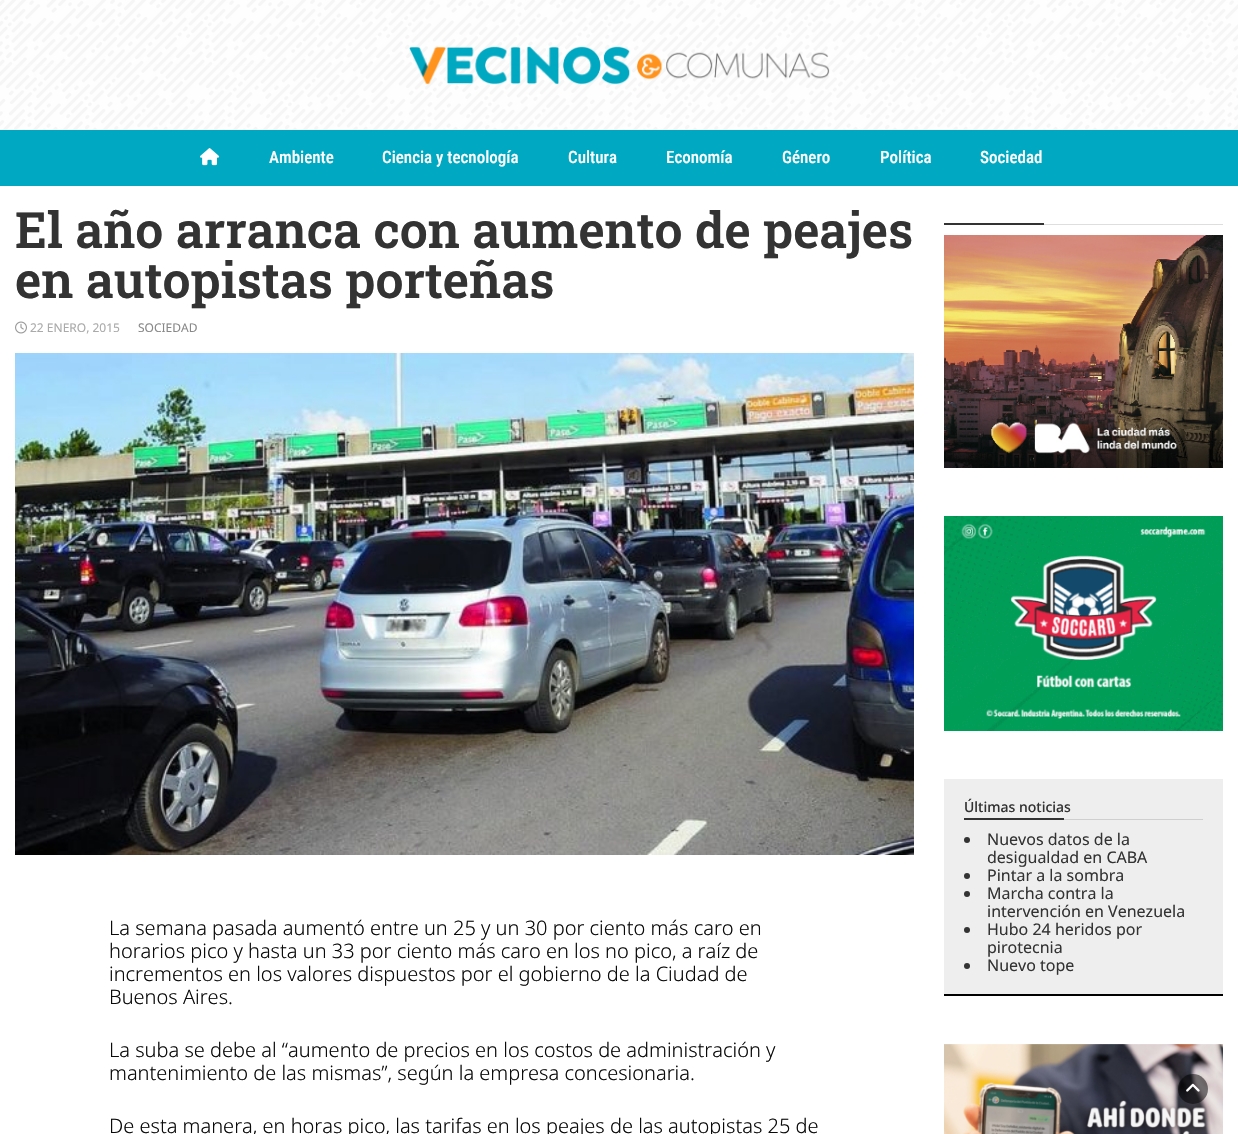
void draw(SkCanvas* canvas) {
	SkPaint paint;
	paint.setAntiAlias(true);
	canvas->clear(0xffffffff);
	canvas->drawImageRect(SkImages::DeferredFromEncodedData(SkData::MakeFromFileName("img1.png")), SkRect::MakeXYWH(0, 0, 1238, 130), SkSamplingOptions());
	canvas->drawImageRect(SkImages::DeferredFromEncodedData(SkData::MakeFromFileName("img2.png")), SkRect::MakeXYWH(409, 46, 421, 39), SkSamplingOptions());
	paint.setColor(0xff00a8c1);
	canvas->drawRect(SkRect::MakeXYWH(0, 130, 1238, 56), paint);
	canvas->drawImageRect(SkImages::DeferredFromEncodedData(SkData::MakeFromFileName("img3.png")), SkRect::MakeXYWH(200, 148, 20, 18), SkSamplingOptions());
	SkFont f1(fontMgr->matchFamilyStyle("Roboto Condensed", SkFontStyle(500, SkFontStyle::kNormal_Width, SkFontStyle::kUpright_Slant)), 17);
	f1.setSubpixel(true);
	paint.setColor(0xffffffff);
	canvas->drawString("Ambiente", 269, 163, f1, paint);
	canvas->drawString("Ciencia y tecnología", 382, 163, f1, paint);
	canvas->drawString("Cultura", 568, 163, f1, paint);
	canvas->drawString("Economía", 666, 163, f1, paint);
	canvas->drawString("Género", 782, 163, f1, paint);
	canvas->drawString("Política", 880, 163, f1, paint);
	canvas->drawString("Sociedad", 980, 163, f1, paint);
	SkFont f2(fontMgr->matchFamilyStyle("Roboto Slab", SkFontStyle(600, SkFontStyle::kNormal_Width, SkFontStyle::kUpright_Slant)), 50);
	f2.setSubpixel(true);
	paint.setColor(0xff333333);
	canvas->drawString("El año arranca con aumento de peajes", 15, 248, f2, paint);
	canvas->drawString("en autopistas porteñas", 15, 298, f2, paint);
	canvas->drawImageRect(SkImages::DeferredFromEncodedData(SkData::MakeFromFileName("img4.png")), SkRect::MakeXYWH(15, 321, 12, 13), SkSamplingOptions());
	SkFont f3(fontMgr->matchFamilyStyle("Noto Sans", SkFontStyle::Normal()), 12);
	f3.setSubpixel(true);
	paint.setColor(0xffaaaaaa);
	canvas->drawString("22 ENERO, 2015", 30, 332, f3, paint);
	paint.setColor(0xff888888);
	canvas->drawString("SOCIEDAD", 138, 332, f3, paint);
	canvas->drawImageRect(SkImages::DeferredFromEncodedData(SkData::MakeFromFileName("img5.png")), SkRect::MakeXYWH(15, 353, 899, 502), SkSamplingOptions());
	SkFont f4(fontMgr->matchFamilyStyle("Noto Sans", SkFontStyle(300, SkFontStyle::kNormal_Width, SkFontStyle::kUpright_Slant)), 20);
	f4.setSubpixel(true);
	paint.setColor(0xff0a0a0a);
	canvas->drawString("La semana pasada aumentó entre un 25 y un 30 por ciento más caro en", 109, 935, f4, paint);
	canvas->drawString("horarios pico y hasta un 33 por ciento más caro en los no pico, a raíz de", 109, 958, f4, paint);
	canvas->drawString("incrementos en los valores dispuestos por el gobierno de la Ciudad de", 109, 981, f4, paint);
	canvas->drawString("Buenos Aires.", 109, 1004, f4, paint);
	canvas->drawString("La suba se debe al “aumento de precios en los costos de administración y", 109, 1057, f4, paint);
	canvas->drawString("mantenimiento de las mismas”, según la empresa concesionaria.", 109, 1080, f4, paint);
	canvas->drawString("De esta manera, en horas pico, las tarifas en los peajes de las autopistas 25 de", 109, 1133, f4, paint);
	paint.setColor(0xffdedede);
	canvas->drawRect(SkRect::MakeXYWH(1044, 224, 179, 1), paint);
	paint.setColor(0xff333333);
	canvas->drawRect(SkRect::MakeXYWH(944, 223, 100, 2), paint);
	canvas->drawImageRect(SkImages::DeferredFromEncodedData(SkData::MakeFromFileName("img6.png")), SkRect::MakeXYWH(944, 235, 279, 233), SkSamplingOptions());
	canvas->drawImageRect(SkImages::DeferredFromEncodedData(SkData::MakeFromFileName("img7.png")), SkRect::MakeXYWH(944, 516, 279, 215), SkSamplingOptions());
	paint.setColor(0xffeeeeee);
	canvas->drawRect(SkRect::MakeXYWH(944, 779, 279, 215), paint);
	paint.setColor(0xff000000);
	canvas->drawRect(SkRect::MakeXYWH(944, 994, 279, 2), paint);
	paint.setColor(0xffcfcfcf);
	canvas->drawRect(SkRect::MakeXYWH(1064, 819, 139, 1), paint);
	SkFont f5(fontMgr->matchFamilyStyle("Noto Sans", SkFontStyle(500, SkFontStyle::kNormal_Width, SkFontStyle::kUpright_Slant)), 14);
	f5.setSubpixel(true);
	paint.setColor(0xff333333);
	canvas->drawString("Últimas noticias", 964, 812, f5, paint);
	canvas->drawRect(SkRect::MakeXYWH(964, 818, 100, 2), paint);
	canvas->drawCircle(967, 840, 3, paint);
	SkFont f6(fontMgr->matchFamilyStyle("Noto Sans", SkFontStyle::Normal()), 16);
	f6.setSubpixel(true);
	canvas->drawString("Nuevos datos de la", 987, 845, f6, paint);
	canvas->drawString("desigualdad en CABA", 987, 863, f6, paint);
	canvas->drawCircle(967, 876, 3, paint);
	canvas->drawString("Pintar a la sombra", 987, 881, f6, paint);
	canvas->drawCircle(967, 894, 3, paint);
	canvas->drawString("Marcha contra la", 987, 899, f6, paint);
	canvas->drawString("intervención en Venezuela", 987, 917, f6, paint);
	canvas->drawCircle(967, 930, 3, paint);
	canvas->drawString("Hubo 24 heridos por", 987, 935, f6, paint);
	canvas->drawString("pirotecnia", 987, 953, f6, paint);
	canvas->drawCircle(967, 966, 3, paint);
	canvas->drawString("Nuevo tope", 987, 971, f6, paint);
	canvas->drawImageRect(SkImages::DeferredFromEncodedData(SkData::MakeFromFileName("img8.png")), SkRect::MakeXYWH(944, 1044, 279, 90), SkSamplingOptions());
	paint.setColor(0x80000000);
	canvas->drawCircle(1193, 1089, 15, paint);
	canvas->drawImageRect(SkImages::DeferredFromEncodedData(SkData::MakeFromFileName("img9.png")), SkRect::MakeXYWH(1186, 1083, 14, 9), SkSamplingOptions());
}
